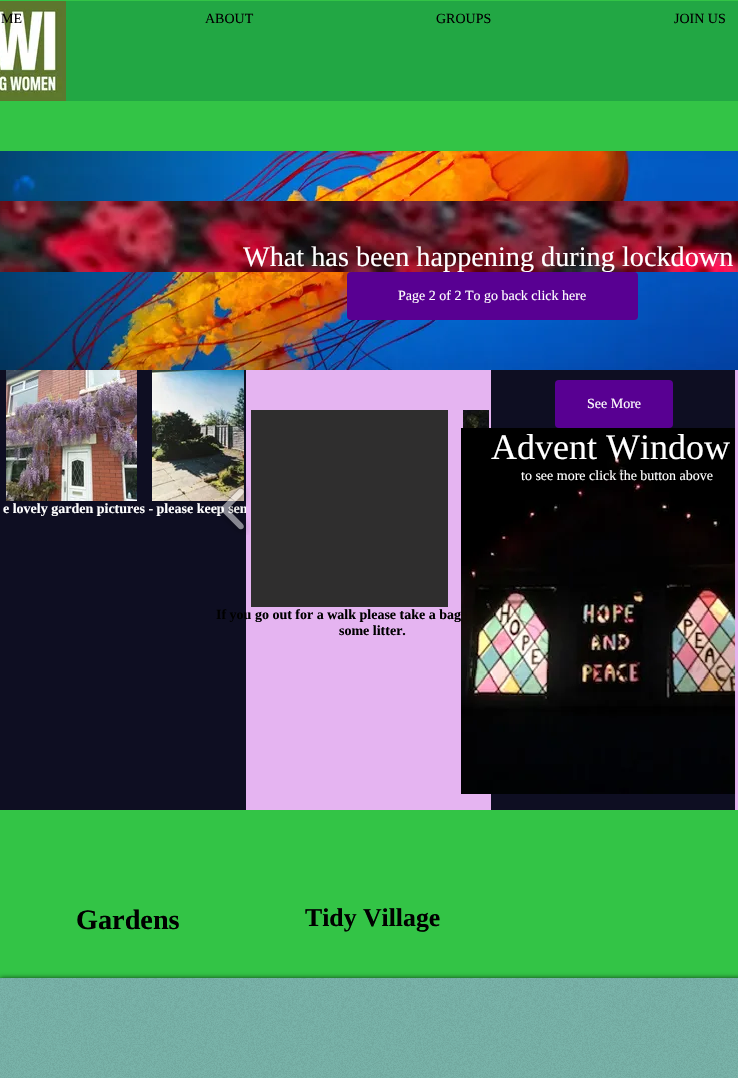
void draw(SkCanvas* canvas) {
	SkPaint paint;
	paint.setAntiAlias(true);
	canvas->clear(0xff33c446);
	paint.setColor(0xff22a744);
	canvas->drawRect(SkRect::MakeXYWH(66, 1, 672, 100), paint);
	canvas->drawImageRect(SkImages::DeferredFromEncodedData(SkData::MakeFromFileName("img1.png")), SkRect::MakeXYWH(0, 1, 66, 100), SkSamplingOptions());
	SkFont f1(fontMgr->matchFamilyStyle("Liberation Serif", SkFontStyle::Normal()), 14);
	f1.setSubpixel(true);
	paint.setColor(0xff000000);
	canvas->drawString("ME", 1, 23, f1, paint);
	canvas->drawString("ABOUT", 205, 23, f1, paint);
	canvas->drawString("GROUPS", 436, 23, f1, paint);
	canvas->drawString("JOIN US", 674, 23, f1, paint);
	canvas->drawImageRect(SkImages::DeferredFromEncodedData(SkData::MakeFromFileName("img2.png")), SkRect::MakeXYWH(0, 151, 738, 219), SkSamplingOptions());
	canvas->drawImageRect(SkImages::DeferredFromEncodedData(SkData::MakeFromFileName("img3.png")), SkRect::MakeXYWH(0, 201, 738, 71), SkSamplingOptions());
	SkFont f2(fontMgr->matchFamilyStyle("Liberation Serif", SkFontStyle::Normal()), 28.25);
	f2.setSubpixel(true);
	paint.setColor(0xffffffff);
	canvas->drawString("What has been happening during lockdown", 243, 266, f2, paint);
	paint.setColor(0xff580092);
	canvas->drawRoundRect(SkRect::MakeXYWH(347, 272, 291, 48), 4, 4, paint);
	paint.setColor(0xffffffff);
	canvas->drawString("Page 2 of 2 To go back click here", 398, 300, f1, paint);
	paint.setColor(0xff0e0e22);
	canvas->drawRect(SkRect::MakeXYWH(0, 370, 735, 440), paint);
	paint.setColor(0xff580092);
	canvas->drawRoundRect(SkRect::MakeXYWH(555, 380, 118, 48), 4, 4, paint);
	paint.setColor(0xffffffff);
	canvas->drawString("See More", 587, 408, f1, paint);
	SkFont f3(fontMgr->matchFamilyStyle("Liberation Serif", SkFontStyle::Bold()), 14);
	f3.setSubpixel(true);
	canvas->drawString("e lovely garden pictures - please keep sen", 3, 513, f3, paint);
	paint.setColor(0xffe5b4f1);
	canvas->drawRect(SkRect::MakeXYWH(246, 370, 245, 440), paint);
	paint.setColor(0xff000000);
	canvas->drawString("If you go out for a walk please take a bag", 216, 619, f3, paint);
	canvas->drawImageRect(SkImages::DeferredFromEncodedData(SkData::MakeFromFileName("img4.png")), SkRect::MakeXYWH(461, 428, 274, 366), SkSamplingOptions());
	SkFont f4(fontMgr->matchFamilyStyle("Liberation Serif", SkFontStyle::Normal()), 36);
	f4.setSubpixel(true);
	paint.setColor(0xffffffff);
	canvas->drawString("Advent Window", 491, 459, f4, paint);
	canvas->drawString("to see more click the button above", 521, 480, f1, paint);
	paint.setColor(0xffe5b4f1);
	canvas->drawRect(SkRect::MakeXYWH(735, 370, 3, 440), paint);
	canvas->drawImageRect(SkImages::DeferredFromEncodedData(SkData::MakeFromFileName("img5.png")), SkRect::MakeXYWH(6, 370, 131, 131), SkSamplingOptions());
	canvas->drawImageRect(SkImages::DeferredFromEncodedData(SkData::MakeFromFileName("img6.png")), SkRect::MakeXYWH(152, 370, 92, 131), SkSamplingOptions());
	canvas->drawImageRect(SkImages::DeferredFromEncodedData(SkData::MakeFromFileName("img7.png")), SkRect::MakeXYWH(218, 486, 32, 49), SkSamplingOptions());
	paint.setColor(0xff2f2e2e);
	canvas->drawRect(SkRect::MakeXYWH(251, 410, 197, 197), paint);
	canvas->drawImageRect(SkImages::DeferredFromEncodedData(SkData::MakeFromFileName("img8.png")), SkRect::MakeXYWH(463, 410, 26, 18), SkSamplingOptions());
	paint.setColor(0xff000000);
	canvas->drawString("some litter.", 339, 635, f3, paint);
	SkFont f5(fontMgr->matchFamilyStyle("Liberation Serif", SkFontStyle::Bold()), 28.25);
	f5.setSubpixel(true);
	canvas->drawString("Gardens", 76, 929, f5, paint);
	SkFont f6(fontMgr->matchFamilyStyle("Liberation Serif", SkFontStyle::Bold()), 25.75);
	f6.setSubpixel(true);
	canvas->drawString("Tidy Village", 305, 926, f6, paint);
	paint.setColor(0xb3000000);
	paint.setMaskFilter(SkMaskFilter::MakeBlur(kNormal_SkBlurStyle, 2.5));
	canvas->drawRect(SkRect::MakeXYWH(0, 978, 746, 100), paint);
	paint.setMaskFilter(nullptr);
	paint.setColor(0xff78b3a9);
	canvas->drawRect(SkRect::MakeXYWH(0, 978, 738, 100), paint);
	canvas->drawImageRect(SkImages::DeferredFromEncodedData(SkData::MakeFromFileName("img9.png")), SkRect::MakeXYWH(0, 978, 738, 100), SkSamplingOptions());
}
